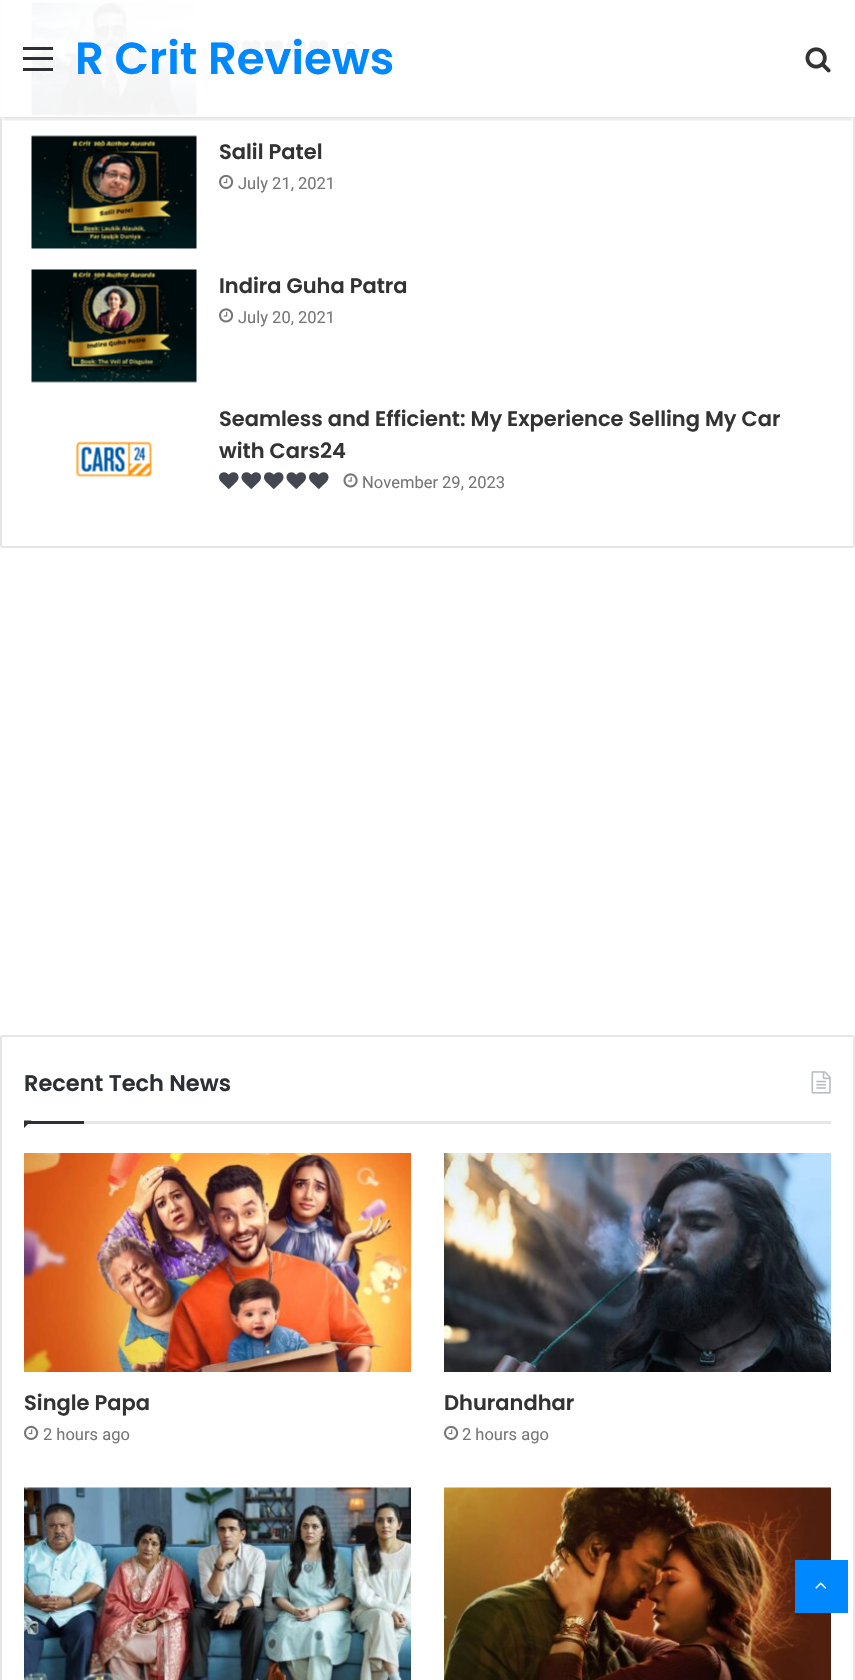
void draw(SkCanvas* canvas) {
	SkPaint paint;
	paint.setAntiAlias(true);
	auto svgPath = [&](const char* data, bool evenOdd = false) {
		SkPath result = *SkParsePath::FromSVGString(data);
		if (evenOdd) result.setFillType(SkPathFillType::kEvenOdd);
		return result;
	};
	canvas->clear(0xffffffff);
	paint.setStroke(true);
	paint.setStrokeWidth(2);
	paint.setColor(0xffe6e6e6);
	canvas->drawRoundRect(SkRect::MakeXYWH(1, -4, 853, 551), 2, 2, paint);
	canvas->drawImageRect(SkImages::DeferredFromEncodedData(SkData::MakeFromFileName("img2.png")), SkRect::MakeXYWH(31, 2, 166, 114), SkSamplingOptions());
	canvas->drawImageRect(SkImages::DeferredFromEncodedData(SkData::MakeFromFileName("img3.png")), SkRect::MakeXYWH(219, 40, 110, 17), SkSamplingOptions());
	canvas->drawImageRect(SkImages::DeferredFromEncodedData(SkData::MakeFromFileName("img4.png")), SkRect::MakeXYWH(343, 41, 15, 15), SkSamplingOptions());
	canvas->save();
	canvas->clipRect(SkRect::MakeXYWH(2, 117, 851, 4));
	paint.setStroke(false);
	paint.setColor(0x1a000000);
	paint.setMaskFilter(SkMaskFilter::MakeBlur(kNormal_SkBlurStyle, 1.5));
	canvas->drawRect(SkRect::MakeXYWH(3, 9, 849, 111), paint);
	paint.setMaskFilter(nullptr);
	canvas->restore();
	paint.setColor(0xf2ffffff);
	canvas->drawRect(SkRect::MakeXYWH(0, 0, 855, 117), paint);
	paint.setColor(0xff2c2f34);
	canvas->drawRect(SkRect::MakeXYWH(23, 57, 30, 3), paint);
	canvas->drawRect(SkRect::MakeXYWH(23, 47, 30, 3), paint);
	canvas->drawRect(SkRect::MakeXYWH(23, 68, 30, 3), paint);
	SkFont f1(fontMgr->matchFamilyStyle("Poppins", SkFontStyle(600, SkFontStyle::kNormal_Width, SkFontStyle::kUpright_Slant)), 45);
	f1.setSubpixel(true);
	paint.setColor(0xff0088ff);
	canvas->drawString("R Crit Reviews", 75, 74, f1, paint);
	canvas->drawImageRect(SkImages::DeferredFromEncodedData(SkData::MakeFromFileName("img1.png")), SkRect::MakeXYWH(805, 47, 26, 26), SkSamplingOptions());
	canvas->drawImageRect(SkImages::DeferredFromEncodedData(SkData::MakeFromFileName("img5.png")), SkRect::MakeXYWH(31, 135, 166, 114), SkSamplingOptions());
	SkFont f2(fontMgr->matchFamilyStyle("Poppins", SkFontStyle(600, SkFontStyle::kNormal_Width, SkFontStyle::kUpright_Slant)), 21);
	f2.setSubpixel(true);
	paint.setColor(0xff333333);
	canvas->drawString("Salil Patel", 219, 159, f2, paint);
	canvas->drawImageRect(SkImages::DeferredFromEncodedData(SkData::MakeFromFileName("img6.png")), SkRect::MakeXYWH(219, 174, 15, 15), SkSamplingOptions());
	SkFont f3(fontMgr->matchFamilyStyle("Roboto", SkFontStyle::Normal()), 16.5);
	f3.setSubpixel(true);
	paint.setColor(0xff767676);
	canvas->drawString("July 21, 2021", 238, 189, f3, paint);
	canvas->drawImageRect(SkImages::DeferredFromEncodedData(SkData::MakeFromFileName("img7.png")), SkRect::MakeXYWH(31, 269, 166, 114), SkSamplingOptions());
	paint.setColor(0xff333333);
	canvas->drawString("Indira Guha Patra", 219, 293, f2, paint);
	canvas->drawImageRect(SkImages::DeferredFromEncodedData(SkData::MakeFromFileName("img8.png")), SkRect::MakeXYWH(219, 308, 15, 15), SkSamplingOptions());
	paint.setColor(0xff767676);
	canvas->drawString("July 20, 2021", 238, 323, f3, paint);
	canvas->drawImageRect(SkImages::DeferredFromEncodedData(SkData::MakeFromFileName("img9.png")), SkRect::MakeXYWH(76, 441, 76, 36), SkSamplingOptions());
	paint.setColor(0xff333333);
	canvas->drawString("Seamless and Efficient: My Experience Selling My Car", 219, 426, f2, paint);
	canvas->drawString("with Cars24", 219, 458, f2, paint);
	canvas->drawImageRect(SkImages::DeferredFromEncodedData(SkData::MakeFromFileName("img3.png")), SkRect::MakeXYWH(219, 472, 110, 17), SkSamplingOptions());
	canvas->drawImageRect(SkImages::DeferredFromEncodedData(SkData::MakeFromFileName("img4.png")), SkRect::MakeXYWH(343, 473, 15, 15), SkSamplingOptions());
	paint.setColor(0xff767676);
	canvas->drawString("November 29, 2023", 362, 488, f3, paint);
	paint.setStroke(true);
	paint.setColor(0xffe6e6e6);
	canvas->drawRoundRect(SkRect::MakeXYWH(1, 1036, 853, 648), 2, 2, paint);
	paint.setStroke(false);
	canvas->drawRect(SkRect::MakeXYWH(84, 1121, 747, 3), paint);
	SkFont f4(fontMgr->matchFamilyStyle("Poppins", SkFontStyle(600, SkFontStyle::kNormal_Width, SkFontStyle::kUpright_Slant)), 22.5);
	f4.setSubpixel(true);
	paint.setColor(0xff2c2f34);
	canvas->drawString("Recent Tech News", 24, 1091, f4, paint);
	canvas->drawImageRect(SkImages::DeferredFromEncodedData(SkData::MakeFromFileName("img10.png")), SkRect::MakeXYWH(811, 1071, 20, 23), SkSamplingOptions());
	canvas->drawPath(svgPath("M24 1120.5H31.5L24 1128Z"), paint);
	canvas->drawRect(SkRect::MakeXYWH(24, 1121, 60, 3), paint);
	canvas->drawImageRect(SkImages::DeferredFromEncodedData(SkData::MakeFromFileName("img11.png")), SkRect::MakeXYWH(24, 1153, 387, 219), SkSamplingOptions());
	paint.setColor(0xff333333);
	canvas->drawString("Single Papa", 24, 1410, f2, paint);
	canvas->drawImageRect(SkImages::DeferredFromEncodedData(SkData::MakeFromFileName("img6.png")), SkRect::MakeXYWH(24, 1425, 15, 15), SkSamplingOptions());
	paint.setColor(0xff767676);
	canvas->drawString("2 hours ago", 43, 1440, f3, paint);
	canvas->drawImageRect(SkImages::DeferredFromEncodedData(SkData::MakeFromFileName("img12.png")), SkRect::MakeXYWH(444, 1153, 387, 219), SkSamplingOptions());
	paint.setColor(0xff333333);
	canvas->drawString("Dhurandhar", 444, 1410, f2, paint);
	canvas->drawImageRect(SkImages::DeferredFromEncodedData(SkData::MakeFromFileName("img6.png")), SkRect::MakeXYWH(444, 1425, 15, 15), SkSamplingOptions());
	paint.setColor(0xff767676);
	canvas->drawString("2 hours ago", 462, 1440, f3, paint);
	canvas->drawImageRect(SkImages::DeferredFromEncodedData(SkData::MakeFromFileName("img13.png")), SkRect::MakeXYWH(24, 1487, 387, 193), SkSamplingOptions());
	canvas->drawImageRect(SkImages::DeferredFromEncodedData(SkData::MakeFromFileName("img14.png")), SkRect::MakeXYWH(444, 1487, 387, 193), SkSamplingOptions());
	paint.setColor(0xff0088ff);
	canvas->drawRect(SkRect::MakeXYWH(795, 1560, 53, 53), paint);
	canvas->drawImageRect(SkImages::DeferredFromEncodedData(SkData::MakeFromFileName("img15.png")), SkRect::MakeXYWH(815, 1582, 12, 7), SkSamplingOptions());
}
